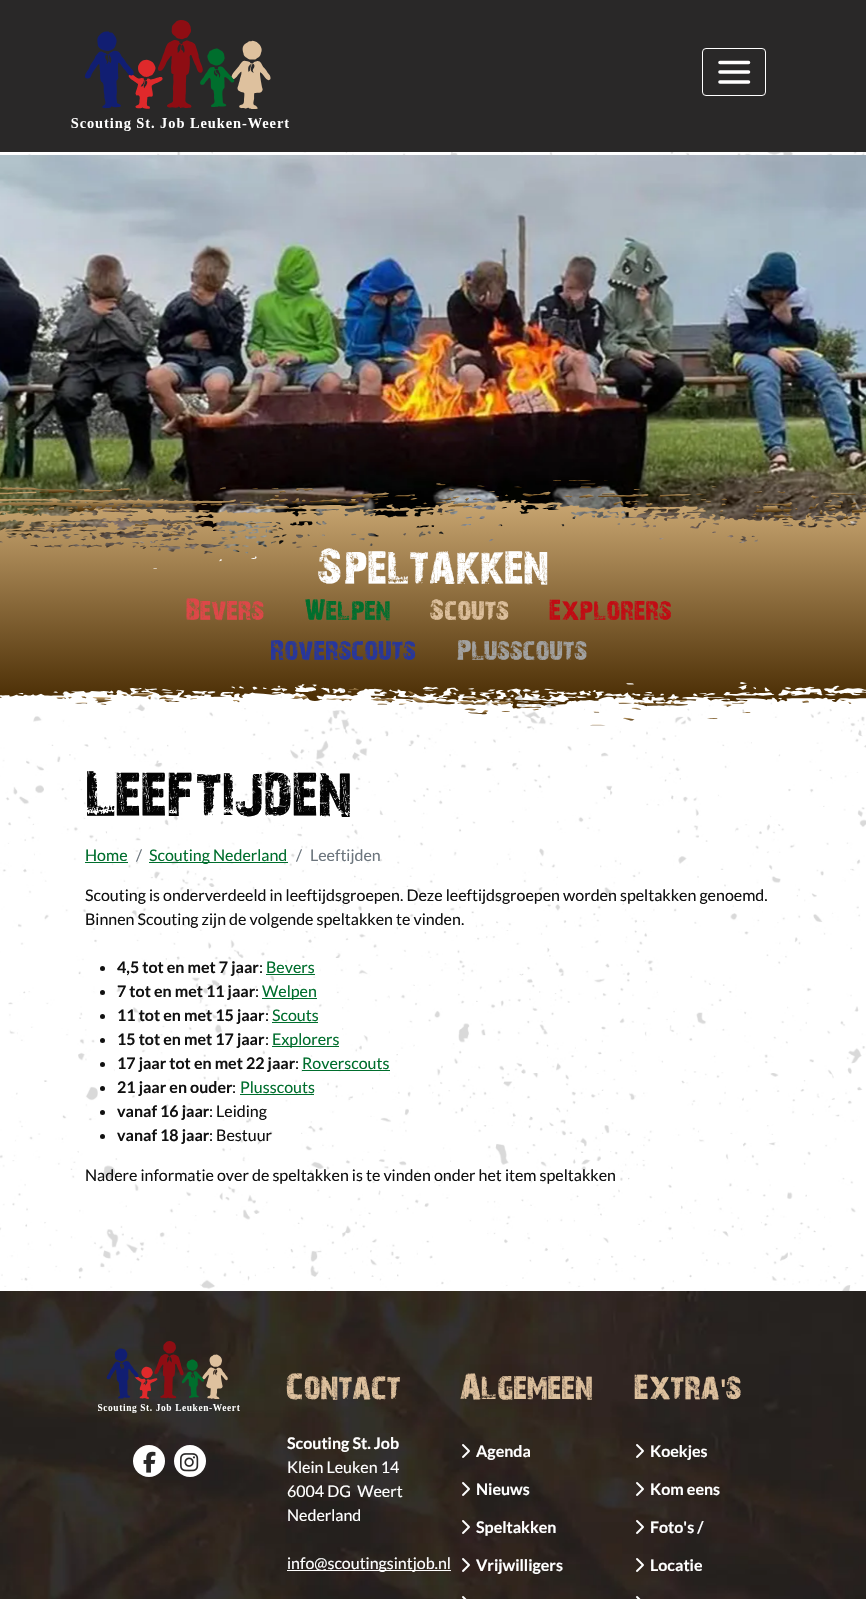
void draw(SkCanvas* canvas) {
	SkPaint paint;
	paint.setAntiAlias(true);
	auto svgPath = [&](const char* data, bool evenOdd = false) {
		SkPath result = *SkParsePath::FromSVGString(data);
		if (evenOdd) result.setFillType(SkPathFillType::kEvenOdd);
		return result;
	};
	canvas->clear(0xffffffff);
	canvas->drawImageRect(SkImages::DeferredFromEncodedData(SkData::MakeFromFileName("img1.png")), SkRect::MakeXYWH(0, 152, 866, 1139), SkSamplingOptions());
	paint.setColor(0xff292828);
	canvas->drawRect(SkRect::MakeXYWH(0, 0, 866, 152), paint);
	canvas->drawImageRect(SkImages::DeferredFromEncodedData(SkData::MakeFromFileName("img2.png")), SkRect::MakeXYWH(71, 20, 218, 111), SkSamplingOptions());
	paint.setStroke(true);
	paint.setStrokeWidth(1);
	paint.setColor(0xffffffff);
	canvas->drawRoundRect(SkRect::MakeXYWH(702.5, 48.5, 63, 47), 3.5, 3.5, paint);
	paint.setStrokeWidth(3.6);
	paint.setStrokeCap(SkPaint::kRound_Cap);
	canvas->drawPath(svgPath("M720 62.5H748.5M720 72H748.5M720 82H748.5"), paint);
	canvas->drawImageRect(SkImages::DeferredFromEncodedData(SkData::MakeFromFileName("img3.png")), SkRect::MakeXYWH(0, 155, 866, 399), SkSamplingOptions());
	canvas->drawImageRect(SkImages::DeferredFromEncodedData(SkData::MakeFromFileName("img4.png")), SkRect::MakeXYWH(0, 480, 866, 246), SkSamplingOptions());
	SkFont f1(fontMgr->matchFamilyStyle("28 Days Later", SkFontStyle::Normal()), 48);
	f1.setSubpixel(true);
	paint.setStroke(false);
	canvas->drawString("Speltakken", 318, 589, f1, paint);
	SkFont f2(fontMgr->matchFamilyStyle("28 Days Later", SkFontStyle::Normal()), 28);
	f2.setSubpixel(true);
	paint.setColor(0xffde4748);
	canvas->drawString("Bevers", 186, 623, f2, paint);
	paint.setColor(0xff006e2d);
	canvas->drawString("Welpen", 305, 623, f2, paint);
	paint.setColor(0xffdec19e);
	canvas->drawString("Scouts", 430, 623, f2, paint);
	paint.setColor(0xffc10b13);
	canvas->drawString("Explorers", 549, 623, f2, paint);
	paint.setColor(0xff26369e);
	canvas->drawString("Roverscouts", 270, 663, f2, paint);
	paint.setColor(0xffa2a2a2);
	canvas->drawString("Plusscouts", 456, 663, f2, paint);
	SkFont f3(fontMgr->matchFamilyStyle("28 Days Later", SkFontStyle::Normal()), 64);
	f3.setSubpixel(true);
	paint.setColor(0xff030303);
	canvas->drawString("Leeftijden", 85, 823, f3, paint);
	SkFont f4(fontMgr->matchFamilyStyle("Lato", SkFontStyle::Normal()), 16);
	f4.setSubpixel(true);
	paint.setColor(0xff006e2d);
	canvas->drawString("Home", 85, 861, f4, paint);
	canvas->drawRect(SkRect::MakeXYWH(85, 862, 43, 1), paint);
	paint.setColor(0xff6c757d);
	canvas->drawString("/", 136, 861, f4, paint);
	paint.setColor(0xff006e2d);
	canvas->drawRect(SkRect::MakeXYWH(149, 862, 139, 1), paint);
	canvas->drawString("Scouting Nederland", 149, 861, f4, paint);
	paint.setColor(0xff6c757d);
	canvas->drawString("/", 296, 861, f4, paint);
	canvas->drawString("Leeftijden", 310, 861, f4, paint);
	paint.setColor(0xff111111);
	canvas->drawString("Scouting is onderverdeeld in leeftijdsgroepen. Deze leeftijdsgroepen worden speltakken genoemd.", 85, 901, f4, paint);
	canvas->drawString("Binnen Scouting zijn de volgende speltakken te vinden.", 85, 925, f4, paint);
	canvas->drawCircle(102.5, 968.5, 2.5, paint);
	SkFont f5(fontMgr->matchFamilyStyle("Lato", SkFontStyle::Bold()), 16);
	f5.setSubpixel(true);
	canvas->drawString("4,5 tot en met 7 jaar", 117, 973, f5, paint);
	canvas->drawString(":", 259, 973, f4, paint);
	paint.setColor(0xff006e2d);
	canvas->drawString("Bevers", 266, 973, f4, paint);
	canvas->drawRect(SkRect::MakeXYWH(266, 974, 49, 1), paint);
	paint.setColor(0xff111111);
	canvas->drawCircle(102.5, 992.5, 2.5, paint);
	canvas->drawString("7 tot en met 11 jaar", 117, 997, f5, paint);
	canvas->drawString(":", 255, 997, f4, paint);
	paint.setColor(0xff006e2d);
	canvas->drawRect(SkRect::MakeXYWH(262, 998, 55, 1), paint);
	canvas->drawString("Welpen", 262, 997, f4, paint);
	paint.setColor(0xff111111);
	canvas->drawCircle(102.5, 1016.5, 2.5, paint);
	canvas->drawString("11 tot en met 15 jaar", 117, 1021, f5, paint);
	canvas->drawString(":", 265, 1021, f4, paint);
	paint.setColor(0xff006e2d);
	canvas->drawString("Scouts", 272, 1021, f4, paint);
	canvas->drawRect(SkRect::MakeXYWH(272, 1022, 46, 1), paint);
	paint.setColor(0xff111111);
	canvas->drawCircle(102.5, 1040.5, 2.5, paint);
	canvas->drawString("15 tot en met 17 jaar", 117, 1045, f5, paint);
	canvas->drawString(":", 265, 1045, f4, paint);
	paint.setColor(0xff006e2d);
	canvas->drawRect(SkRect::MakeXYWH(272, 1046, 67, 1), paint);
	canvas->drawString("Explorers", 272, 1045, f4, paint);
	paint.setColor(0xff111111);
	canvas->drawCircle(102.5, 1064.5, 2.5, paint);
	canvas->drawString("17 jaar tot en met 22 jaar", 117, 1069, f5, paint);
	canvas->drawString(":", 295, 1069, f4, paint);
	paint.setColor(0xff006e2d);
	canvas->drawString("Roverscouts", 302, 1069, f4, paint);
	canvas->drawRect(SkRect::MakeXYWH(302, 1070, 88, 1), paint);
	paint.setColor(0xff111111);
	canvas->drawCircle(102.5, 1088.5, 2.5, paint);
	canvas->drawString("21 jaar en ouder", 117, 1093, f5, paint);
	canvas->drawString(":", 232, 1093, f4, paint);
	paint.setColor(0xff006e2d);
	canvas->drawString("Plusscouts", 240, 1093, f4, paint);
	canvas->drawRect(SkRect::MakeXYWH(240, 1094, 74, 1), paint);
	paint.setColor(0xff111111);
	canvas->drawCircle(102.5, 1112.5, 2.5, paint);
	canvas->drawString("vanaf 16 jaar", 117, 1117, f5, paint);
	canvas->drawString(": Leiding", 209, 1117, f4, paint);
	canvas->drawCircle(102.5, 1136.5, 2.5, paint);
	canvas->drawString("vanaf 18 jaar", 117, 1141, f5, paint);
	canvas->drawString(": Bestuur", 209, 1141, f4, paint);
	canvas->drawString("Nadere informatie over de speltakken is te vinden onder het item speltakken", 85, 1181, f4, paint);
	canvas->drawImageRect(SkImages::DeferredFromEncodedData(SkData::MakeFromFileName("img5.png")), SkRect::MakeXYWH(0, 1291, 866, 308), SkSamplingOptions());
	canvas->drawImageRect(SkImages::DeferredFromEncodedData(SkData::MakeFromFileName("img6.png")), SkRect::MakeXYWH(98, 1341, 142, 72), SkSamplingOptions());
	paint.setColor(0xffffffff);
	canvas->drawCircle(149, 1461, 16, paint);
	canvas->drawImageRect(SkImages::DeferredFromEncodedData(SkData::MakeFromFileName("img7.png")), SkRect::MakeXYWH(143, 1451, 13, 22), SkSamplingOptions());
	canvas->drawCircle(190, 1461, 16, paint);
	canvas->drawImageRect(SkImages::DeferredFromEncodedData(SkData::MakeFromFileName("img8.png")), SkRect::MakeXYWH(180, 1453, 19, 19), SkSamplingOptions());
	SkFont f6(fontMgr->matchFamilyStyle("28 Days Later", SkFontStyle::Normal()), 34);
	f6.setSubpixel(true);
	paint.setColor(0xffdec19e);
	canvas->drawString("Contact", 286, 1403, f6, paint);
	paint.setColor(0xffffffff);
	canvas->drawString("Scouting St. Job", 287, 1449, f5, paint);
	canvas->drawString("Klein Leuken 14", 287, 1473, f4, paint);
	canvas->drawString("6004 DG  Weert", 287, 1497, f4, paint);
	canvas->drawString("Nederland", 287, 1521, f4, paint);
	canvas->drawRect(SkRect::MakeXYWH(287, 1570, 164, 1), paint);
	canvas->drawString("info@scoutingsintjob.nl", 287, 1569, f4, paint);
	paint.setColor(0xffdec19e);
	canvas->drawString("Algemeen", 460, 1403, f6, paint);
	canvas->drawImageRect(SkImages::DeferredFromEncodedData(SkData::MakeFromFileName("img9.png")), SkRect::MakeXYWH(462, 1444, 8, 14), SkSamplingOptions());
	paint.setColor(0xffffffff);
	canvas->drawString("Agenda", 476, 1457, f5, paint);
	canvas->drawImageRect(SkImages::DeferredFromEncodedData(SkData::MakeFromFileName("img10.png")), SkRect::MakeXYWH(462, 1482, 8, 14), SkSamplingOptions());
	canvas->drawString("Nieuws", 476, 1495, f5, paint);
	canvas->drawImageRect(SkImages::DeferredFromEncodedData(SkData::MakeFromFileName("img11.png")), SkRect::MakeXYWH(462, 1520, 8, 14), SkSamplingOptions());
	canvas->drawString("Speltakken", 476, 1533, f5, paint);
	canvas->drawImageRect(SkImages::DeferredFromEncodedData(SkData::MakeFromFileName("img12.png")), SkRect::MakeXYWH(462, 1558, 8, 14), SkSamplingOptions());
	canvas->drawString("Vrijwilligers", 476, 1571, f5, paint);
	canvas->drawImageRect(SkImages::DeferredFromEncodedData(SkData::MakeFromFileName("img13.png")), SkRect::MakeXYWH(462, 1596, 5, 3), SkSamplingOptions());
	paint.setColor(0xffdec19e);
	canvas->drawString("Extra", 634, 1403, f6, paint);
	SkFont f7(fontMgr->matchFamilyStyle("Liberation Sans", SkFontStyle::Normal()), 34);
	f7.setSubpixel(true);
	canvas->drawString("'", 720, 1403, f7, paint);
	canvas->drawString("s", 726, 1403, f6, paint);
	canvas->drawImageRect(SkImages::DeferredFromEncodedData(SkData::MakeFromFileName("img14.png")), SkRect::MakeXYWH(636, 1444, 8, 14), SkSamplingOptions());
	paint.setColor(0xffffffff);
	canvas->drawString("Koekjes", 650, 1457, f5, paint);
	canvas->drawImageRect(SkImages::DeferredFromEncodedData(SkData::MakeFromFileName("img15.png")), SkRect::MakeXYWH(636, 1482, 8, 14), SkSamplingOptions());
	canvas->drawString("Kom eens", 650, 1495, f5, paint);
	canvas->drawImageRect(SkImages::DeferredFromEncodedData(SkData::MakeFromFileName("img16.png")), SkRect::MakeXYWH(636, 1520, 8, 14), SkSamplingOptions());
	canvas->drawString("Foto's /", 650, 1533, f5, paint);
	canvas->drawImageRect(SkImages::DeferredFromEncodedData(SkData::MakeFromFileName("img17.png")), SkRect::MakeXYWH(636, 1558, 8, 14), SkSamplingOptions());
	canvas->drawString("Locatie", 650, 1571, f5, paint);
	canvas->drawImageRect(SkImages::DeferredFromEncodedData(SkData::MakeFromFileName("img18.png")), SkRect::MakeXYWH(636, 1596, 5, 3), SkSamplingOptions());
}
